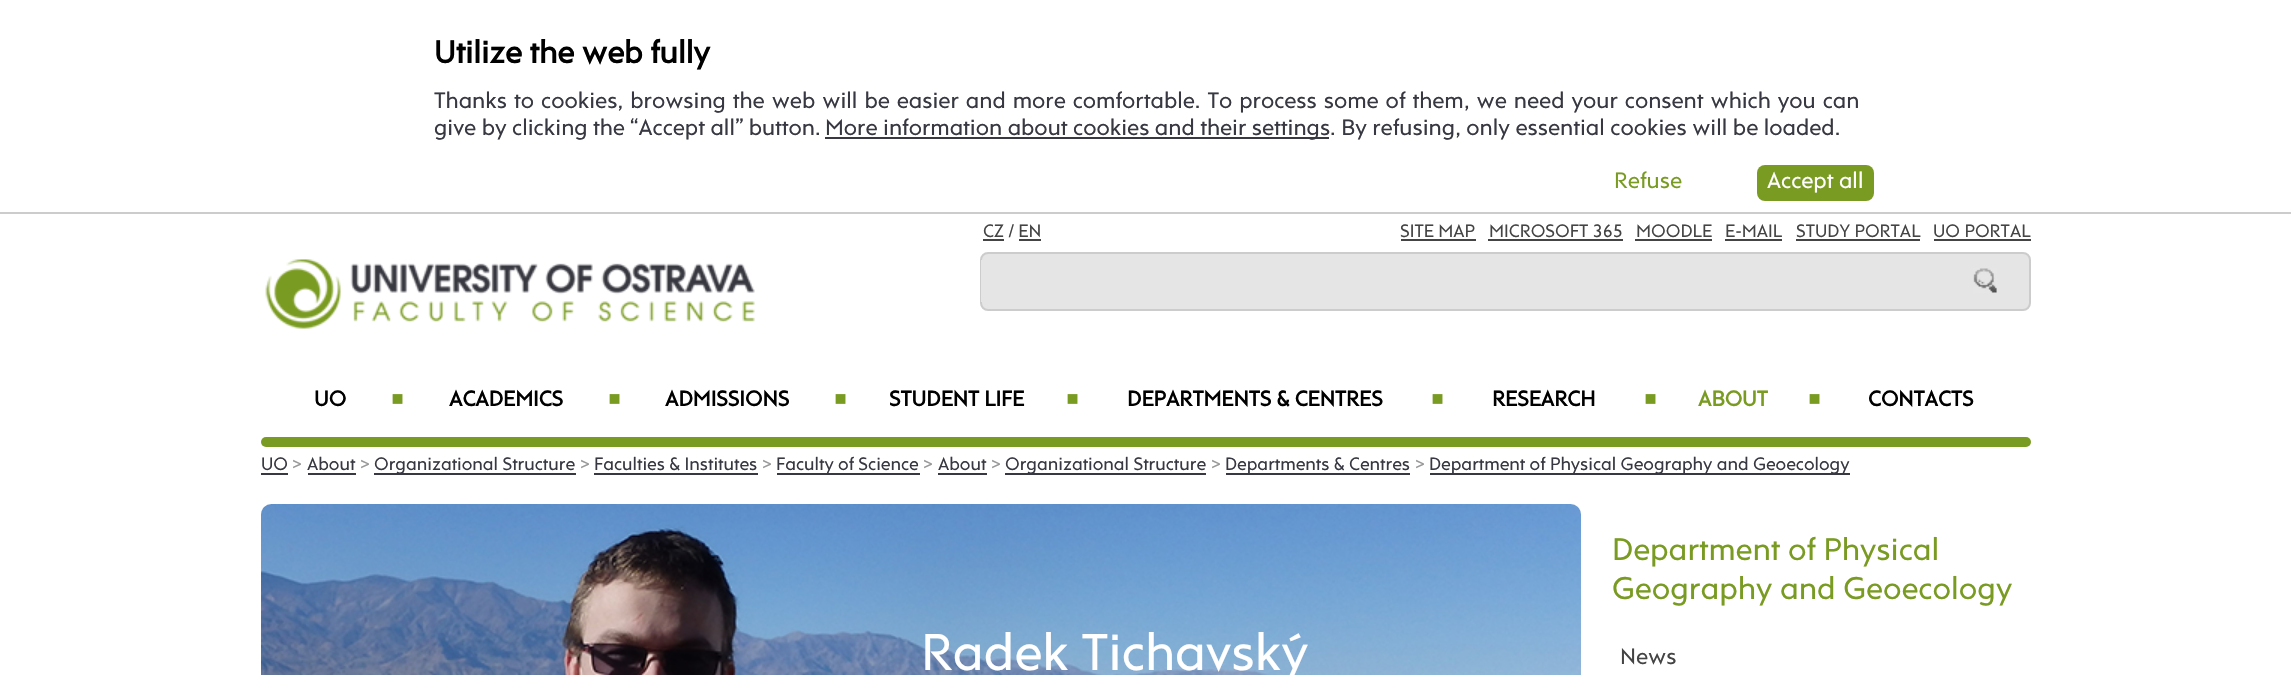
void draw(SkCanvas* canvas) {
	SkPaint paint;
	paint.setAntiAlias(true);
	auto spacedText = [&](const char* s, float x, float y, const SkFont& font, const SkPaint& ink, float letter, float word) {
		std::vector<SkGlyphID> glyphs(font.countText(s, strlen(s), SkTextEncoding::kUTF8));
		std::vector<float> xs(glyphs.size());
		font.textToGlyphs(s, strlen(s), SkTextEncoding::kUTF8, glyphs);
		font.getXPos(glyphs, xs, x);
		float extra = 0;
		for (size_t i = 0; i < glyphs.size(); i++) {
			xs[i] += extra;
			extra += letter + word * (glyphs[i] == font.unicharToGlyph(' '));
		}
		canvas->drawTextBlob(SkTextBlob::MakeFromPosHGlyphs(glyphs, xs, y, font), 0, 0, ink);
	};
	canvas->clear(0xffffffff);
	paint.setColor(0xffcccccc);
	canvas->drawRect(SkRect::MakeXYWH(0, 212, 2291, 2), paint);
	SkFont f1(fontMgr->matchFamilyStyle("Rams", SkFontStyle::Bold()), 32);
	f1.setSubpixel(true);
	paint.setColor(0xff000000);
	canvas->drawString("Utilize the web fully", 434, 63, f1, paint);
	SkFont f2(fontMgr->matchFamilyStyle("Rams", SkFontStyle::Normal()), 22.9);
	f2.setSubpixel(true);
	paint.setColor(0xff373841);
	spacedText("Thanks to cookies, browsing the web will be easier and more comfortable. To process some of them, we need your consent which you can", 434, 108, f2, paint, 0, 1.5);
	canvas->drawString("give by clicking the “Accept all” button.", 434, 135, f2, paint);
	canvas->drawRect(SkRect::MakeXYWH(825, 137, 504, 2), paint);
	canvas->drawString("More information about cookies and their settings. By refusing, only essential cookies will be loaded.", 825, 135, f2, paint);
	paint.setColor(0xff799b22);
	canvas->drawString("Refuse", 1614, 188, f2, paint);
	canvas->drawRoundRect(SkRect::MakeXYWH(1757, 165, 117, 36), 8, 8, paint);
	paint.setColor(0xffffffff);
	canvas->drawString("Accept all", 1767, 188, f2, paint);
	SkFont f3(fontMgr->matchFamilyStyle("Rams", SkFontStyle::Normal()), 18.3);
	f3.setSubpixel(true);
	paint.setColor(0xff444444);
	canvas->drawString("CZ / EN", 983, 237, f3, paint);
	canvas->drawRect(SkRect::MakeXYWH(983, 239, 21, 2), paint);
	canvas->drawRect(SkRect::MakeXYWH(1019, 239, 22, 2), paint);
	canvas->drawString("SITE MAP", 1400, 237, f3, paint);
	canvas->drawRect(SkRect::MakeXYWH(1401, 239, 75, 2), paint);
	canvas->drawString("MICROSOFT 365", 1489, 237, f3, paint);
	canvas->drawRect(SkRect::MakeXYWH(1488, 239, 135, 2), paint);
	canvas->drawString("MOODLE", 1636, 237, f3, paint);
	canvas->drawRect(SkRect::MakeXYWH(1635, 239, 77, 2), paint);
	canvas->drawString("E-MAIL", 1725, 237, f3, paint);
	canvas->drawRect(SkRect::MakeXYWH(1725, 239, 57, 2), paint);
	canvas->drawString("STUDY PORTAL", 1796, 237, f3, paint);
	canvas->drawRect(SkRect::MakeXYWH(1796, 239, 124, 2), paint);
	canvas->drawString("UO PORTAL", 1933, 237, f3, paint);
	canvas->drawRect(SkRect::MakeXYWH(1934, 239, 97, 2), paint);
	paint.setColor(0xffe5e5e5);
	canvas->drawRoundRect(SkRect::MakeXYWH(981, 253, 1049, 57), 7, 7, paint);
	paint.setStroke(true);
	paint.setStrokeWidth(2);
	paint.setColor(0xffcccccc);
	canvas->drawRoundRect(SkRect::MakeXYWH(981, 253, 1049, 57), 7, 7, paint);
	paint.setStroke(false);
	paint.setColor(0xffe5e5e5);
	canvas->drawRect(SkRect::MakeXYWH(981, 260, 1, 42), paint);
	canvas->drawImageRect(SkImages::DeferredFromEncodedData(SkData::MakeFromFileName("img1.png")), SkRect::MakeXYWH(1973, 268, 24, 25), SkSamplingOptions());
	canvas->drawImageRect(SkImages::DeferredFromEncodedData(SkData::MakeFromFileName("img2.png")), SkRect::MakeXYWH(265, 259, 490, 70), SkSamplingOptions());
	SkFont f4(fontMgr->matchFamilyStyle("Rams", SkFontStyle::Bold()), 21.75);
	f4.setSubpixel(true);
	paint.setColor(0xff000000);
	canvas->drawString("UO", 314, 406, f4, paint);
	SkFont f5(fontMgr->matchFamilyStyle("Rams", SkFontStyle::Bold()), 17);
	f5.setSubpixel(true);
	paint.setColor(0xff799b22);
	canvas->drawString("■", 391, 405, f5, paint);
	paint.setColor(0xff000000);
	canvas->drawString("ACADEMICS", 449, 406, f4, paint);
	paint.setColor(0xff799b22);
	canvas->drawString("■", 608, 405, f5, paint);
	paint.setColor(0xff000000);
	canvas->drawString("ADMISSIONS", 665, 406, f4, paint);
	paint.setColor(0xff799b22);
	canvas->drawString("■", 834, 405, f5, paint);
	paint.setColor(0xff000000);
	canvas->drawString("STUDENT LIFE", 889, 406, f4, paint);
	paint.setColor(0xff799b22);
	canvas->drawString("■", 1066, 405, f5, paint);
	paint.setColor(0xff000000);
	canvas->drawString("DEPARTMENTS & CENTRES", 1127, 406, f4, paint);
	paint.setColor(0xff799b22);
	canvas->drawString("■", 1431, 405, f5, paint);
	paint.setColor(0xff000000);
	canvas->drawString("RESEARCH", 1492, 406, f4, paint);
	paint.setColor(0xff799b22);
	canvas->drawString("■", 1644, 405, f5, paint);
	canvas->drawString("ABOUT", 1698, 406, f4, paint);
	canvas->drawString("■", 1808, 405, f5, paint);
	paint.setColor(0xff000000);
	canvas->drawString("CONTACTS", 1868, 406, f4, paint);
	paint.setColor(0xff799b22);
	canvas->drawRoundRect(SkRect::MakeXYWH(261, 437, 1770, 10), 5, 5, paint);
	paint.setColor(0xff373841);
	canvas->drawString("UO", 261, 470, f3, paint);
	canvas->drawRect(SkRect::MakeXYWH(261, 473, 27, 2), paint);
	paint.setColor(0xff999999);
	canvas->drawString(">", 292, 470, f3, paint);
	paint.setColor(0xff373841);
	canvas->drawString("About", 307, 470, f3, paint);
	canvas->drawRect(SkRect::MakeXYWH(308, 473, 48, 2), paint);
	paint.setColor(0xff999999);
	canvas->drawString(">", 360, 470, f3, paint);
	paint.setColor(0xff373841);
	canvas->drawRect(SkRect::MakeXYWH(374, 473, 202, 2), paint);
	canvas->drawString("Organizational Structure", 374, 470, f3, paint);
	paint.setColor(0xff999999);
	canvas->drawString(">", 580, 470, f3, paint);
	paint.setColor(0xff373841);
	canvas->drawString("Faculties & Institutes", 594, 470, f3, paint);
	canvas->drawRect(SkRect::MakeXYWH(594, 473, 164, 2), paint);
	paint.setColor(0xff999999);
	canvas->drawString(">", 762, 470, f3, paint);
	paint.setColor(0xff373841);
	canvas->drawRect(SkRect::MakeXYWH(777, 473, 143, 2), paint);
	canvas->drawString("Faculty of Science", 776, 470, f3, paint);
	paint.setColor(0xff999999);
	canvas->drawString(">", 923, 470, f3, paint);
	paint.setColor(0xff373841);
	canvas->drawString("About", 938, 470, f3, paint);
	canvas->drawRect(SkRect::MakeXYWH(938, 473, 49, 2), paint);
	paint.setColor(0xff999999);
	canvas->drawString(">", 991, 470, f3, paint);
	paint.setColor(0xff373841);
	canvas->drawRect(SkRect::MakeXYWH(1005, 473, 201, 2), paint);
	canvas->drawString("Organizational Structure", 1005, 470, f3, paint);
	paint.setColor(0xff999999);
	canvas->drawString(">", 1211, 470, f3, paint);
	paint.setColor(0xff373841);
	canvas->drawRect(SkRect::MakeXYWH(1226, 473, 184, 2), paint);
	canvas->drawString("Departments & Centres", 1225, 470, f3, paint);
	paint.setColor(0xff999999);
	canvas->drawString(">", 1415, 470, f3, paint);
	paint.setColor(0xff373841);
	canvas->drawRect(SkRect::MakeXYWH(1430, 473, 420, 2), paint);
	canvas->drawString("Department of Physical Geography and Geoecology", 1429, 470, f3, paint);
	canvas->drawImageRect(SkImages::DeferredFromEncodedData(SkData::MakeFromFileName("img3.png")), SkRect::MakeXYWH(261, 504, 1320, 171), SkSamplingOptions());
	SkFont f6(fontMgr->matchFamilyStyle("Rams", SkFontStyle::Normal()), 52.75);
	f6.setSubpixel(true);
	paint.setColor(0xffffffff);
	canvas->drawString("Radek Tichavský", 921, 670, f6, paint);
	SkFont f7(fontMgr->matchFamilyStyle("Rams", SkFontStyle::Normal()), 32);
	f7.setSubpixel(true);
	paint.setColor(0xff799b22);
	canvas->drawString("Department of Physical", 1612, 560, f7, paint);
	canvas->drawString("Geography and Geoecology", 1612, 599, f7, paint);
	paint.setColor(0xff444444);
	canvas->drawString("News", 1620, 664, f2, paint);
}
